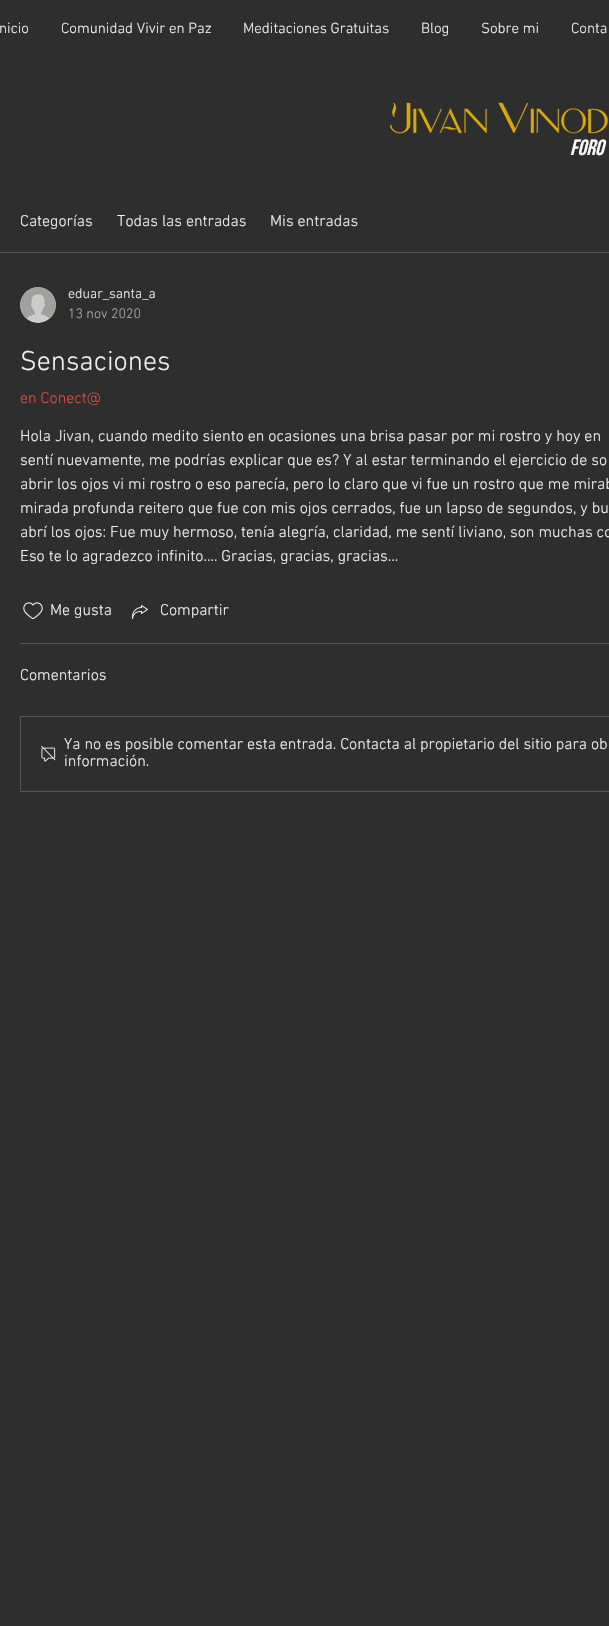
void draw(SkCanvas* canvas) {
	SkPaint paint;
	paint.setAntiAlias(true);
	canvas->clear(0xff2f2e2e);
	SkFont f1(fontMgr->matchFamilyStyle("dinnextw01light", SkFontStyle(300, SkFontStyle::kNormal_Width, SkFontStyle::kUpright_Slant)), 15);
	f1.setSubpixel(true);
	paint.setColor(0xfff2f2f2);
	canvas->drawString("nicio", -1, 33, f1, paint);
	canvas->drawString("Comunidad Vivir en Paz", 61, 33, f1, paint);
	canvas->drawString("Meditaciones Gratuitas", 243, 33, f1, paint);
	canvas->drawString("Blog", 421, 33, f1, paint);
	canvas->drawString("Sobre mi", 481, 33, f1, paint);
	canvas->drawString("Conta", 571, 33, f1, paint);
	canvas->drawImageRect(SkImages::DeferredFromEncodedData(SkData::MakeFromFileName("img1.png")), SkRect::MakeXYWH(389, 102, 219, 32), SkSamplingOptions());
	SkFont f2(fontMgr->matchFamilyStyle("Bebas Neue", SkFontStyle::Italic()), 22);
	f2.setSubpixel(true);
	paint.setColor(0xfffcfcfc);
	canvas->drawString("Foro", 570, 155, f2, paint);
	paint.setColor(0xff565555);
	canvas->drawRect(SkRect::MakeXYWH(0, 252, 609, 1), paint);
	SkFont f3(fontMgr->matchFamilyStyle("dinnextw01light", SkFontStyle(300, SkFontStyle::kNormal_Width, SkFontStyle::kUpright_Slant)), 16);
	f3.setSubpixel(true);
	paint.setColor(0xfff2f2f2);
	canvas->drawString("Categorías", 20, 226, f3, paint);
	canvas->drawString("Todas las entradas", 117, 226, f3, paint);
	canvas->drawString("Mis entradas", 270, 226, f3, paint);
	canvas->drawImageRect(SkImages::DeferredFromEncodedData(SkData::MakeFromFileName("img2.png")), SkRect::MakeXYWH(20, 287, 36, 36), SkSamplingOptions());
	SkFont f4(fontMgr->matchFamilyStyle("dinnextw01light", SkFontStyle(300, SkFontStyle::kNormal_Width, SkFontStyle::kUpright_Slant)), 14);
	f4.setSubpixel(true);
	canvas->drawString("eduar_santa_a", 68, 298, f4, paint);
	paint.setColor(0xffacabab);
	canvas->drawString("13 nov 2020", 68, 318, f4, paint);
	SkFont f5(fontMgr->matchFamilyStyle("dinnextw01light", SkFontStyle(300, SkFontStyle::kNormal_Width, SkFontStyle::kUpright_Slant)), 28);
	f5.setSubpixel(true);
	paint.setColor(0xfff2f2f2);
	canvas->drawString("Sensaciones", 20, 370, f5, paint);
	paint.setColor(0xffe84a43);
	canvas->drawString("en Conect@", 20, 403, f3, paint);
	paint.setColor(0xfff2f2f2);
	canvas->drawString("Hola Jivan, cuando medito siento en ocasiones una brisa pasar por mi rostro y hoy en", 20, 441, f3, paint);
	canvas->drawString("sentí nuevamente, me podrías explicar que es? Y al estar terminando el ejercicio de so", 20, 465, f3, paint);
	canvas->drawString("abrir los ojos vi mi rostro o eso parecía, pero lo claro que vi fue un rostro que me mirab", 20, 489, f3, paint);
	canvas->drawString("mirada profunda reitero que fue con mis ojos cerrados, fue un lapso de segundos, y bu", 20, 513, f3, paint);
	canvas->drawString("abrí los ojos: Fue muy hermoso, tenía alegría, claridad, me sentí liviano, son muchas co", 20, 537, f3, paint);
	canvas->drawString("Eso te lo agradezco infinito.... Gracias, gracias, gracias...", 20, 561, f3, paint);
	canvas->drawImageRect(SkImages::DeferredFromEncodedData(SkData::MakeFromFileName("img3.png")), SkRect::MakeXYWH(23, 602, 20, 18), SkSamplingOptions());
	canvas->drawString("Me gusta", 50, 615, f3, paint);
	canvas->drawImageRect(SkImages::DeferredFromEncodedData(SkData::MakeFromFileName("img4.png")), SkRect::MakeXYWH(132, 605, 16, 14), SkSamplingOptions());
	canvas->drawString("Compartir", 160, 615, f3, paint);
	paint.setColor(0xff565555);
	canvas->drawRect(SkRect::MakeXYWH(20, 643, 589, 1), paint);
	paint.setColor(0xfff2f2f2);
	canvas->drawString("Comentarios", 20, 680, f3, paint);
	paint.setStroke(true);
	paint.setStrokeWidth(1);
	paint.setColor(0xff565555);
	canvas->drawRect(SkRect::MakeXYWH(20.5, 716.5, 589, 75), paint);
	canvas->drawImageRect(SkImages::DeferredFromEncodedData(SkData::MakeFromFileName("img5.png")), SkRect::MakeXYWH(41, 745, 15, 17), SkSamplingOptions());
	paint.setStroke(false);
	paint.setColor(0xfff2f2f2);
	canvas->drawString("Ya no es posible comentar esta entrada. Contacta al propietario del sitio para ob", 64, 749, f3, paint);
	canvas->drawString("información.", 64, 766, f3, paint);
}
